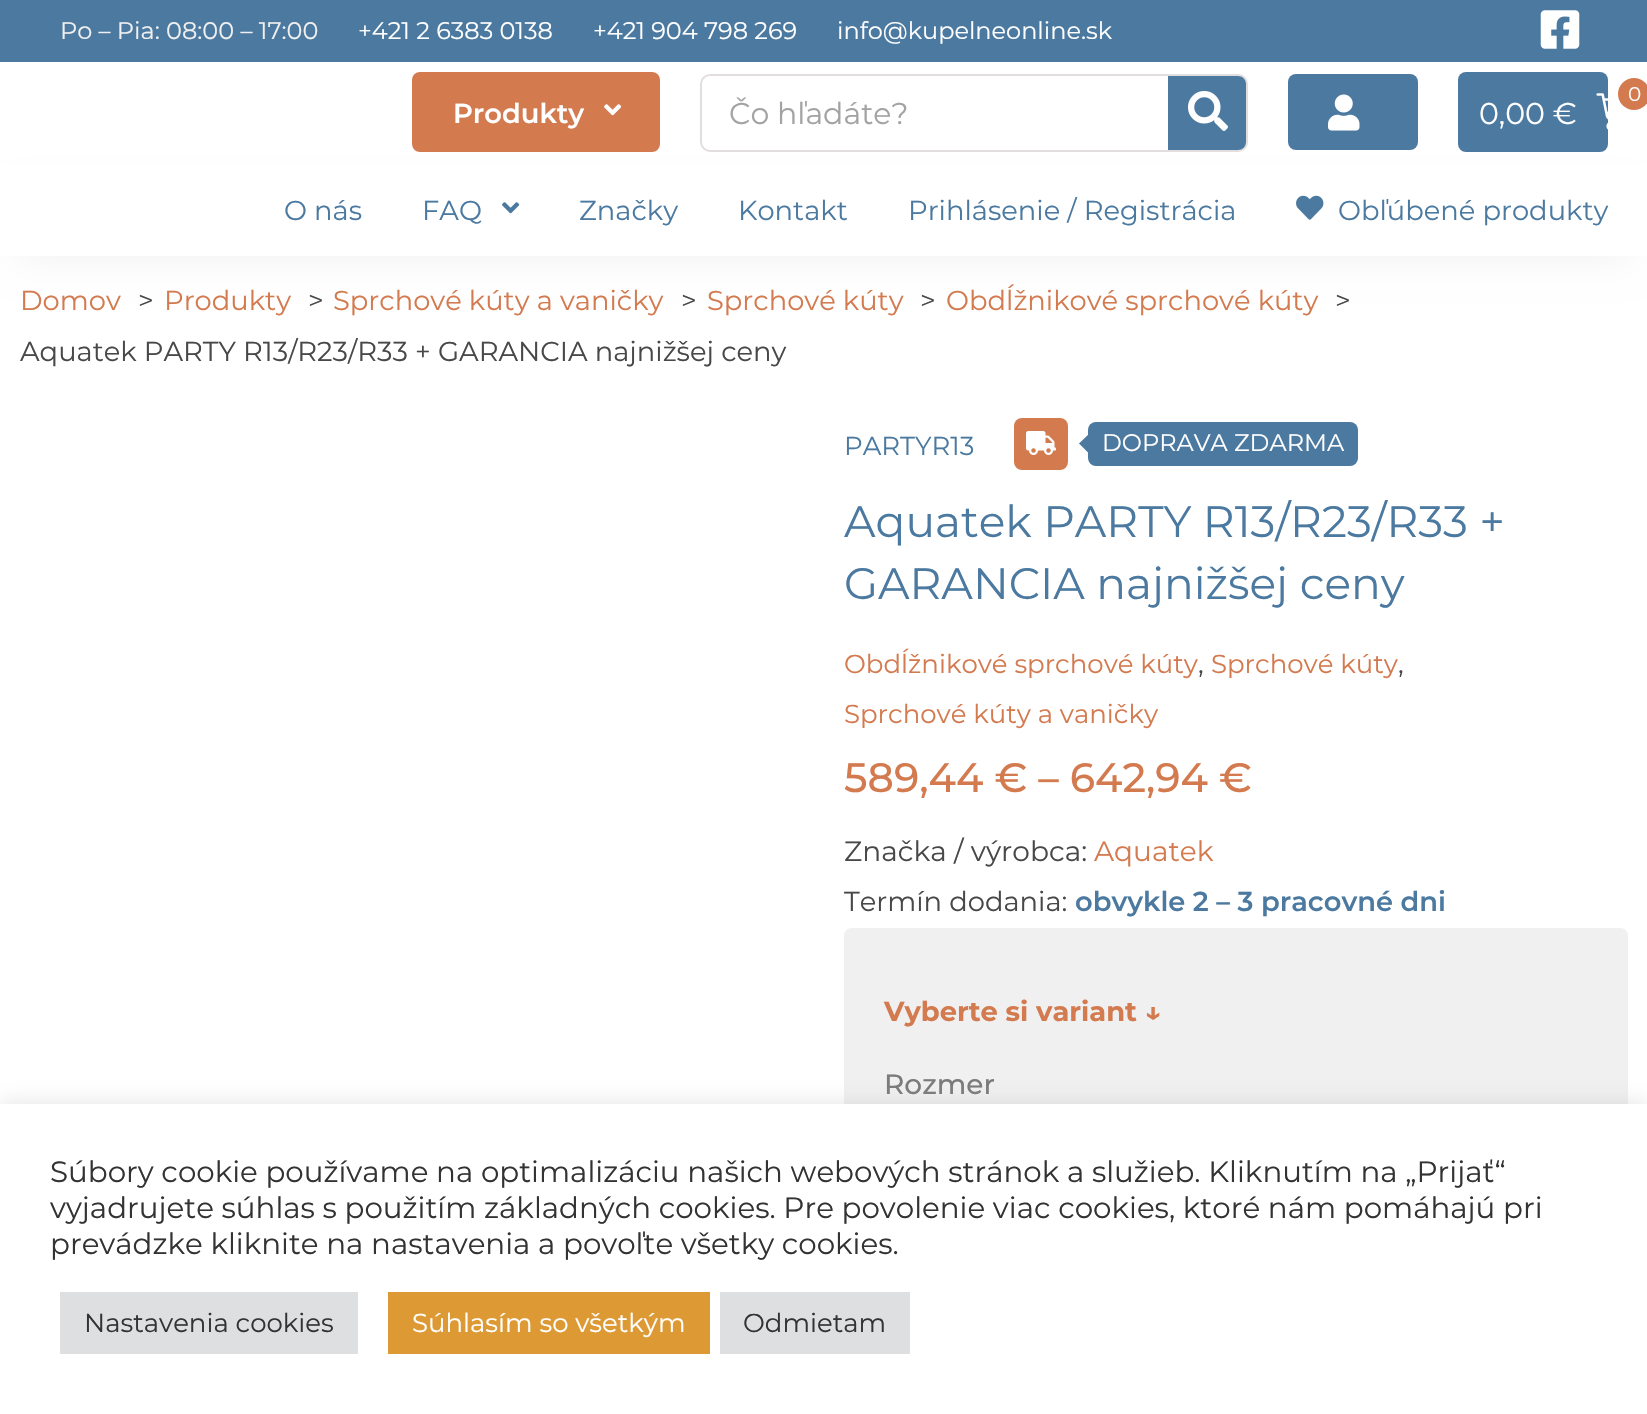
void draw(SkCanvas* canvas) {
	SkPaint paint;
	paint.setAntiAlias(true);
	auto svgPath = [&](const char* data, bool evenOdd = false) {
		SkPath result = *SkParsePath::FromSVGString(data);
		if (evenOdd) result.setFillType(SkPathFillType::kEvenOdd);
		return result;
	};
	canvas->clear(0xffffffff);
	paint.setColor(0xff4b79a0);
	canvas->drawRect(SkRect::MakeXYWH(0, 0, 1647, 62), paint);
	SkFont f1(fontMgr->matchFamilyStyle("Montserrat", SkFontStyle::Normal()), 24);
	f1.setSubpixel(true);
	paint.setColor(0xfff0f0f0);
	canvas->drawString("Po – Pia: 08:00 – 17:00", 60, 39, f1, paint);
	paint.setColor(0xffffffff);
	canvas->drawString("+421 2 6383 0138", 358, 39, f1, paint);
	canvas->drawString("+421 904 798 269", 593, 39, f1, paint);
	canvas->drawString("info@kupelneonline.sk", 837, 39, f1, paint);
	canvas->drawImageRect(SkImages::DeferredFromEncodedData(SkData::MakeFromFileName("img1.png")), SkRect::MakeXYWH(1540, 10, 40, 39), SkSamplingOptions());
	canvas->save();
	canvas->clipPath(svgPath("M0 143H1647V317H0ZM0 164H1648V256H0Z", true), true);
	paint.setColor(0xfff0f0f0);
	paint.setMaskFilter(SkMaskFilter::MakeBlur(kNormal_SkBlurStyle, 20));
	canvas->drawRect(SkRect::MakeXYWH(20, 204, 1608, 52), paint);
	paint.setMaskFilter(nullptr);
	canvas->restore();
	paint.setColor(0xffd37a4f);
	canvas->drawRoundRect(SkRect::MakeXYWH(412, 72, 248, 80), 8, 8, paint);
	SkFont f2(fontMgr->matchFamilyStyle("Montserrat", SkFontStyle(600, SkFontStyle::kNormal_Width, SkFontStyle::kUpright_Slant)), 27.35);
	f2.setSubpixel(true);
	paint.setColor(0xffffffff);
	canvas->drawString("Produkty", 453, 123, f2, paint);
	canvas->drawImageRect(SkImages::DeferredFromEncodedData(SkData::MakeFromFileName("img2.png")), SkRect::MakeXYWH(604, 104, 18, 12), SkSamplingOptions());
	paint.setStroke(true);
	paint.setStrokeWidth(2);
	paint.setColor(0xffe3dede);
	canvas->drawRoundRect(SkRect::MakeXYWH(701, 75, 546, 76), 9, 9, paint);
	SkFont f3(fontMgr->matchFamilyStyle("Montserrat", SkFontStyle::Normal()), 30);
	f3.setSubpixel(true);
	paint.setStroke(false);
	paint.setColor(0xffa3a3a3);
	canvas->drawString("Čo hľadáte?", 729, 124, f3, paint);
	paint.setColor(0xff4b79a0);
	canvas->drawPath(svgPath("M1168 76H1238C1242.5 76 1246 79.5 1246 84V142C1246 146.5 1242.5 150 1238 150H1168Z"), paint);
	canvas->drawImageRect(SkImages::DeferredFromEncodedData(SkData::MakeFromFileName("img3.png")), SkRect::MakeXYWH(1188, 91, 40, 40), SkSamplingOptions());
	canvas->drawRoundRect(SkRect::MakeXYWH(1288, 74, 130, 76), 8, 8, paint);
	canvas->drawImageRect(SkImages::DeferredFromEncodedData(SkData::MakeFromFileName("img4.png")), SkRect::MakeXYWH(1328, 94, 32, 37), SkSamplingOptions());
	canvas->drawRoundRect(SkRect::MakeXYWH(1458, 72, 150, 80), 8, 8, paint);
	canvas->drawImageRect(SkImages::DeferredFromEncodedData(SkData::MakeFromFileName("img5.png")), SkRect::MakeXYWH(1596, 93, 12, 37), SkSamplingOptions());
	paint.setColor(0xffd37a4f);
	canvas->drawCircle(1634, 94, 16, paint);
	SkFont f4(fontMgr->matchFamilyStyle("Montserrat", SkFontStyle::Normal()), 20);
	f4.setSubpixel(true);
	paint.setColor(0xffffffff);
	canvas->drawString("0", 1628, 101, f4, paint);
	canvas->drawString("0,00 €", 1479, 124, f3, paint);
	SkFont f5(fontMgr->matchFamilyStyle("Montserrat", SkFontStyle::Normal()), 27.35);
	f5.setSubpixel(true);
	paint.setColor(0xff4b79a0);
	canvas->drawString("O nás", 284, 220, f5, paint);
	canvas->drawString("FAQ", 422, 220, f5, paint);
	canvas->drawImageRect(SkImages::DeferredFromEncodedData(SkData::MakeFromFileName("img6.png")), SkRect::MakeXYWH(502, 202, 18, 12), SkSamplingOptions());
	canvas->drawString("Značky", 579, 220, f5, paint);
	canvas->drawString("Kontakt", 738, 220, f5, paint);
	canvas->drawString("Prihlásenie / Registrácia", 908, 220, f5, paint);
	canvas->drawImageRect(SkImages::DeferredFromEncodedData(SkData::MakeFromFileName("img7.png")), SkRect::MakeXYWH(1296, 195, 28, 25), SkSamplingOptions());
	canvas->drawString("Obľúbené produkty", 1338, 220, f5, paint);
	paint.setColor(0xffd37a4f);
	canvas->drawString("Domov", 20, 310, f5, paint);
	paint.setColor(0xff484848);
	canvas->drawString(">", 138, 310, f5, paint);
	paint.setColor(0xffd37a4f);
	canvas->drawString("Produkty", 164, 310, f5, paint);
	paint.setColor(0xff484848);
	canvas->drawString(">", 308, 310, f5, paint);
	paint.setColor(0xffd37a4f);
	canvas->drawString("Sprchové kúty a vaničky", 333, 310, f5, paint);
	paint.setColor(0xff484848);
	canvas->drawString(">", 681, 310, f5, paint);
	paint.setColor(0xffd37a4f);
	canvas->drawString("Sprchové kúty", 707, 310, f5, paint);
	paint.setColor(0xff484848);
	canvas->drawString(">", 920, 310, f5, paint);
	paint.setColor(0xffd37a4f);
	canvas->drawString("Obdĺžnikové sprchové kúty", 946, 310, f5, paint);
	paint.setColor(0xff484848);
	canvas->drawString(">", 1335, 310, f5, paint);
	canvas->drawString("Aquatek PARTY R13/R23/R33 + GARANCIA najnižšej ceny", 20, 361, f5, paint);
	SkFont f6(fontMgr->matchFamilyStyle("Montserrat", SkFontStyle::Normal()), 26);
	f6.setSubpixel(true);
	paint.setColor(0xff4b79a0);
	canvas->drawString("PARTYR13", 844, 455, f6, paint);
	paint.setColor(0xffd37a4f);
	canvas->drawRoundRect(SkRect::MakeXYWH(1014, 418, 54, 52), 8, 8, paint);
	canvas->drawImageRect(SkImages::DeferredFromEncodedData(SkData::MakeFromFileName("img8.png")), SkRect::MakeXYWH(1026, 431, 30, 24), SkSamplingOptions());
	paint.setColor(0xff4b79a0);
	canvas->drawRoundRect(SkRect::MakeXYWH(1088, 422, 270, 44), 8, 8, paint);
	canvas->drawPath(svgPath("M1090.5 432.5L1101.5 443.5L1090.5 455L1079 443.5Z"), paint);
	paint.setColor(0xffffffff);
	canvas->drawString("DOPRAVA ZDARMA", 1102, 451, f1, paint);
	SkFont f7(fontMgr->matchFamilyStyle("Montserrat", SkFontStyle::Normal()), 44);
	f7.setSubpixel(true);
	paint.setColor(0xff4b79a0);
	canvas->drawString("Aquatek PARTY R13/R23/R33 +", 844, 537, f7, paint);
	canvas->drawString("GARANCIA najnižšej ceny", 844, 599, f7, paint);
	paint.setColor(0xffd37a4f);
	canvas->drawString("Obdĺžnikové sprchové kúty", 844, 673, f6, paint);
	paint.setColor(0xff484848);
	canvas->drawString(",", 1198, 673, f5, paint);
	paint.setColor(0xffd37a4f);
	canvas->drawString("Sprchové kúty", 1211, 673, f6, paint);
	paint.setColor(0xff484848);
	canvas->drawString(",", 1398, 673, f5, paint);
	paint.setColor(0xffd37a4f);
	canvas->drawString("Sprchové kúty a vaničky", 844, 723, f6, paint);
	SkFont f8(fontMgr->matchFamilyStyle("Montserrat", SkFontStyle(500, SkFontStyle::kNormal_Width, SkFontStyle::kUpright_Slant)), 41);
	f8.setSubpixel(true);
	canvas->drawString("589,44 € – 642,94 €", 844, 792, f8, paint);
	SkFont f9(fontMgr->matchFamilyStyle("Montserrat", SkFontStyle::Normal()), 28);
	f9.setSubpixel(true);
	paint.setColor(0xff484848);
	canvas->drawString("Značka / výrobca:", 844, 861, f9, paint);
	paint.setColor(0xffd37a4f);
	canvas->drawString("Aquatek", 1094, 861, f9, paint);
	paint.setColor(0xff484848);
	canvas->drawString("Termín dodania:", 844, 911, f5, paint);
	paint.setColor(0xff4b79a0);
	canvas->drawString("obvykle 2 – 3 pracovné dni", 1075, 911, f2, paint);
	paint.setColor(0xfff0f0f0);
	canvas->drawRoundRect(SkRect::MakeXYWH(844, 928, 784, 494), 8, 8, paint);
	SkFont f10(fontMgr->matchFamilyStyle("Montserrat", SkFontStyle::Bold()), 27.35);
	f10.setSubpixel(true);
	paint.setColor(0xffd37a4f);
	canvas->drawString("Vyberte si variant ↓", 884, 1021, f10, paint);
	SkFont f11(fontMgr->matchFamilyStyle("Montserrat", SkFontStyle(500, SkFontStyle::kNormal_Width, SkFontStyle::kUpright_Slant)), 28);
	f11.setSubpixel(true);
	paint.setColor(0xff7a7a7a);
	canvas->drawString("Rozmer", 884, 1094, f11, paint);
	paint.setColor(0x4dacabab);
	paint.setMaskFilter(SkMaskFilter::MakeBlur(kNormal_SkBlurStyle, 10));
	canvas->drawRect(SkRect::MakeXYWH(0, 1102, 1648, 310), paint);
	paint.setMaskFilter(nullptr);
	paint.setColor(0xffffffff);
	canvas->drawRect(SkRect::MakeXYWH(0, 1104, 1647, 310), paint);
	SkFont f12(fontMgr->matchFamilyStyle("Montserrat", SkFontStyle::Normal()), 29.33);
	f12.setSubpixel(true);
	paint.setColor(0xff333333);
	canvas->drawString("Súbory cookie používame na optimalizáciu našich webových stránok a služieb. Kliknutím na „Prijať“", 50, 1182, f12, paint);
	canvas->drawString("vyjadrujete súhlas s použitím základných cookies. Pre povolenie viac cookies, ktoré nám pomáhajú pri", 50, 1218, f12, paint);
	canvas->drawString("prevádzke kliknite na nastavenia a povoľte všetky cookies.", 50, 1254, f12, paint);
	paint.setColor(0xffdedfe0);
	canvas->drawRect(SkRect::MakeXYWH(60, 1292, 298, 62), paint);
	paint.setColor(0xff333333);
	canvas->drawString("Nastavenia cookies", 84, 1332, f6, paint);
	paint.setColor(0xffdd9933);
	canvas->drawRect(SkRect::MakeXYWH(388, 1292, 322, 62), paint);
	paint.setColor(0xffffffff);
	canvas->drawString("Súhlasím so všetkým", 412, 1332, f6, paint);
	paint.setColor(0xffdedfe0);
	canvas->drawRect(SkRect::MakeXYWH(720, 1292, 190, 62), paint);
	paint.setColor(0xff333333);
	canvas->drawString("Odmietam", 743, 1332, f6, paint);
}
